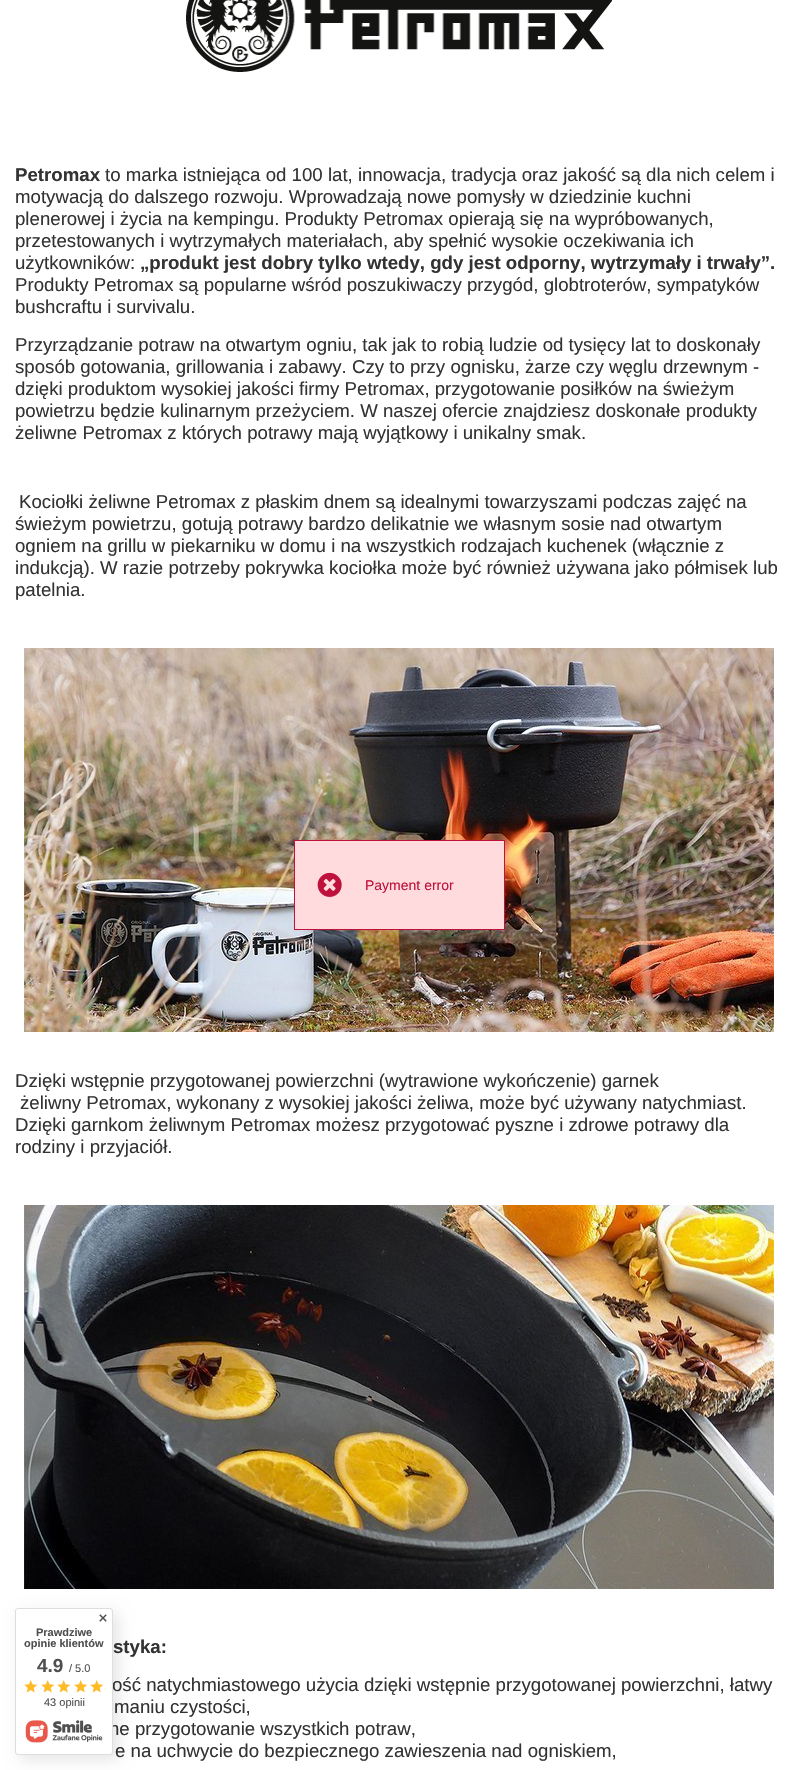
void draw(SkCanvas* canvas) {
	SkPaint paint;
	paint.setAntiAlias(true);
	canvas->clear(0xffffffff);
	canvas->drawImageRect(SkImages::DeferredFromEncodedData(SkData::MakeFromFileName("img1.png")), SkRect::MakeXYWH(186, 0, 426, 72), SkSamplingOptions());
	SkFont f1(fontMgr->matchFamilyStyle("Liberation Sans", SkFontStyle::Bold()), 18.65);
	f1.setSubpixel(true);
	paint.setColor(0xff333333);
	canvas->drawString("Petromax", 15, 181, f1, paint);
	SkFont f2(fontMgr->matchFamilyStyle("Liberation Sans", SkFontStyle::Normal()), 18.65);
	f2.setSubpixel(true);
	canvas->drawString("to marka istniejąca od 100 lat, innowacja, tradycja oraz jakość są dla nich celem i", 105, 181, f2, paint);
	canvas->drawString("motywacją do dalszego rozwoju. Wprowadzają nowe pomysły w dziedzinie kuchni", 15, 203, f2, paint);
	canvas->drawString("plenerowej i życia na kempingu. Produkty Petromax opierają się na wypróbowanych,", 15, 225, f2, paint);
	canvas->drawString("przetestowanych i wytrzymałych materiałach, aby spełnić wysokie oczekiwania ich", 15, 247, f2, paint);
	canvas->drawString("użytkowników:", 15, 269, f2, paint);
	canvas->drawString("„produkt jest dobry tylko wtedy, gdy jest odporny, wytrzymały i trwały”.", 140, 269, f1, paint);
	canvas->drawString("Produkty Petromax są popularne wśród poszukiwaczy przygód, globtroterów, sympatyków", 15, 291, f2, paint);
	canvas->drawString("bushcraftu i survivalu.", 15, 313, f2, paint);
	canvas->drawString("Przyrządzanie potraw na otwartym ogniu, tak jak to robią ludzie od tysięcy lat to doskonały", 15, 351, f2, paint);
	canvas->drawString("sposób gotowania, grillowania i zabawy. Czy to przy ognisku, żarze czy węglu drzewnym -", 15, 373, f2, paint);
	canvas->drawString("dzięki produktom wysokiej jakości firmy Petromax, przygotowanie posiłków na świeżym", 15, 395, f2, paint);
	canvas->drawString("powietrzu będzie kulinarnym przeżyciem. W naszej ofercie znajdziesz doskonałe produkty", 15, 417, f2, paint);
	canvas->drawString("żeliwne Petromax z których potrawy mają wyjątkowy i unikalny smak.", 15, 439, f2, paint);
	canvas->drawString("Kociołki żeliwne Petromax z płaskim dnem są idealnymi towarzyszami podczas zajęć na", 19, 508, f2, paint);
	canvas->drawString("świeżym powietrzu, gotują potrawy bardzo delikatnie we własnym sosie nad otwartym", 15, 530, f2, paint);
	canvas->drawString("ogniem na grillu w piekarniku w domu i na wszystkich rodzajach kuchenek (włącznie z", 15, 552, f2, paint);
	canvas->drawString("indukcją). W razie potrzeby pokrywka kociołka może być również używana jako półmisek lub", 15, 574, f2, paint);
	canvas->drawString("patelnia.", 15, 596, f2, paint);
	canvas->drawImageRect(SkImages::DeferredFromEncodedData(SkData::MakeFromFileName("img2.png")), SkRect::MakeXYWH(24, 648, 750, 384), SkSamplingOptions());
	canvas->drawString("Dzięki wstępnie przygotowanej powierzchni (wytrawione wykończenie) garnek", 15, 1087, f2, paint);
	canvas->drawString("żeliwny Petromax, wykonany z wysokiej jakości żeliwa, może być używany natychmiast.", 20, 1109, f2, paint);
	canvas->drawString("Dzięki garnkom żeliwnym Petromax możesz przygotować pyszne i zdrowe potrawy dla", 15, 1131, f2, paint);
	canvas->drawString("rodziny i przyjaciół.", 15, 1153, f2, paint);
	canvas->drawImageRect(SkImages::DeferredFromEncodedData(SkData::MakeFromFileName("img3.png")), SkRect::MakeXYWH(24, 1205, 750, 384), SkSamplingOptions());
	canvas->drawString("styka:", 113, 1653, f1, paint);
	canvas->drawString("ość natychmiastowego użycia dzięki wstępnie przygotowanej powierzchni, łatwy", 112, 1691, f2, paint);
	canvas->drawString("maniu czystości,", 114, 1713, f2, paint);
	canvas->drawString("ne przygotowanie wszystkich potraw,", 109, 1735, f2, paint);
	canvas->drawString("e na uchwycie do bezpiecznego zawieszenia nad ogniskiem,", 115, 1757, f2, paint);
	paint.setColor(0xffffdbdd);
	canvas->drawRect(SkRect::MakeXYWH(294.5, 840.5, 210, 89), paint);
	paint.setStroke(true);
	paint.setStrokeWidth(1);
	paint.setColor(0xffbe123c);
	canvas->drawRect(SkRect::MakeXYWH(294.5, 840.5, 210, 89), paint);
	canvas->drawImageRect(SkImages::DeferredFromEncodedData(SkData::MakeFromFileName("img4.png")), SkRect::MakeXYWH(317, 872, 25, 25), SkSamplingOptions());
	SkFont f3(fontMgr->matchFamilyStyle("Liberation Sans", SkFontStyle::Normal()), 14);
	f3.setSubpixel(true);
	paint.setStroke(false);
	canvas->drawString("Payment error", 365, 890, f3, paint);
	paint.setColor(0x1a000000);
	paint.setMaskFilter(SkMaskFilter::MakeBlur(kNormal_SkBlurStyle, 7.5));
	canvas->drawRoundRect(SkRect::MakeXYWH(20, 1613, 98, 147), 3, 3, paint);
	paint.setMaskFilter(nullptr);
	paint.setColor(0xffffffff);
	canvas->drawRoundRect(SkRect::MakeXYWH(15.5, 1608.5, 97, 146), 2.5, 2.5, paint);
	paint.setStroke(true);
	paint.setColor(0xffdedede);
	canvas->drawRoundRect(SkRect::MakeXYWH(15.5, 1608.5, 97, 146), 2.5, 2.5, paint);
	canvas->drawImageRect(SkImages::DeferredFromEncodedData(SkData::MakeFromFileName("img5.png")), SkRect::MakeXYWH(99, 1614, 8, 8), SkSamplingOptions());
	SkFont f4(fontMgr->matchFamilyStyle("Liberation Sans", SkFontStyle::Bold()), 11);
	f4.setSubpixel(true);
	paint.setStroke(false);
	paint.setColor(0xff4f4f4f);
	canvas->drawString("Prawdziwe", 36, 1636, f4, paint);
	canvas->drawString("opinie klientów", 24, 1647, f4, paint);
	SkFont f5(fontMgr->matchFamilyStyle("Liberation Sans", SkFontStyle::Bold()), 19);
	f5.setSubpixel(true);
	canvas->drawString("4.9", 37, 1672, f5, paint);
	SkFont f6(fontMgr->matchFamilyStyle("Liberation Sans", SkFontStyle::Normal()), 11);
	f6.setSubpixel(true);
	canvas->drawString("/ 5.0", 69, 1672, f6, paint);
	canvas->drawImageRect(SkImages::DeferredFromEncodedData(SkData::MakeFromFileName("img6.png")), SkRect::MakeXYWH(24, 1680, 14, 13), SkSamplingOptions());
	canvas->drawImageRect(SkImages::DeferredFromEncodedData(SkData::MakeFromFileName("img7.png")), SkRect::MakeXYWH(41, 1680, 13, 13), SkSamplingOptions());
	canvas->drawImageRect(SkImages::DeferredFromEncodedData(SkData::MakeFromFileName("img6.png")), SkRect::MakeXYWH(57, 1680, 14, 13), SkSamplingOptions());
	canvas->drawImageRect(SkImages::DeferredFromEncodedData(SkData::MakeFromFileName("img7.png")), SkRect::MakeXYWH(74, 1680, 13, 13), SkSamplingOptions());
	canvas->drawImageRect(SkImages::DeferredFromEncodedData(SkData::MakeFromFileName("img6.png")), SkRect::MakeXYWH(90, 1680, 14, 13), SkSamplingOptions());
	canvas->drawString("43 opinii", 44, 1706, f6, paint);
	canvas->drawImageRect(SkImages::DeferredFromEncodedData(SkData::MakeFromFileName("img8.png")), SkRect::MakeXYWH(25, 1720, 78, 23), SkSamplingOptions());
}
